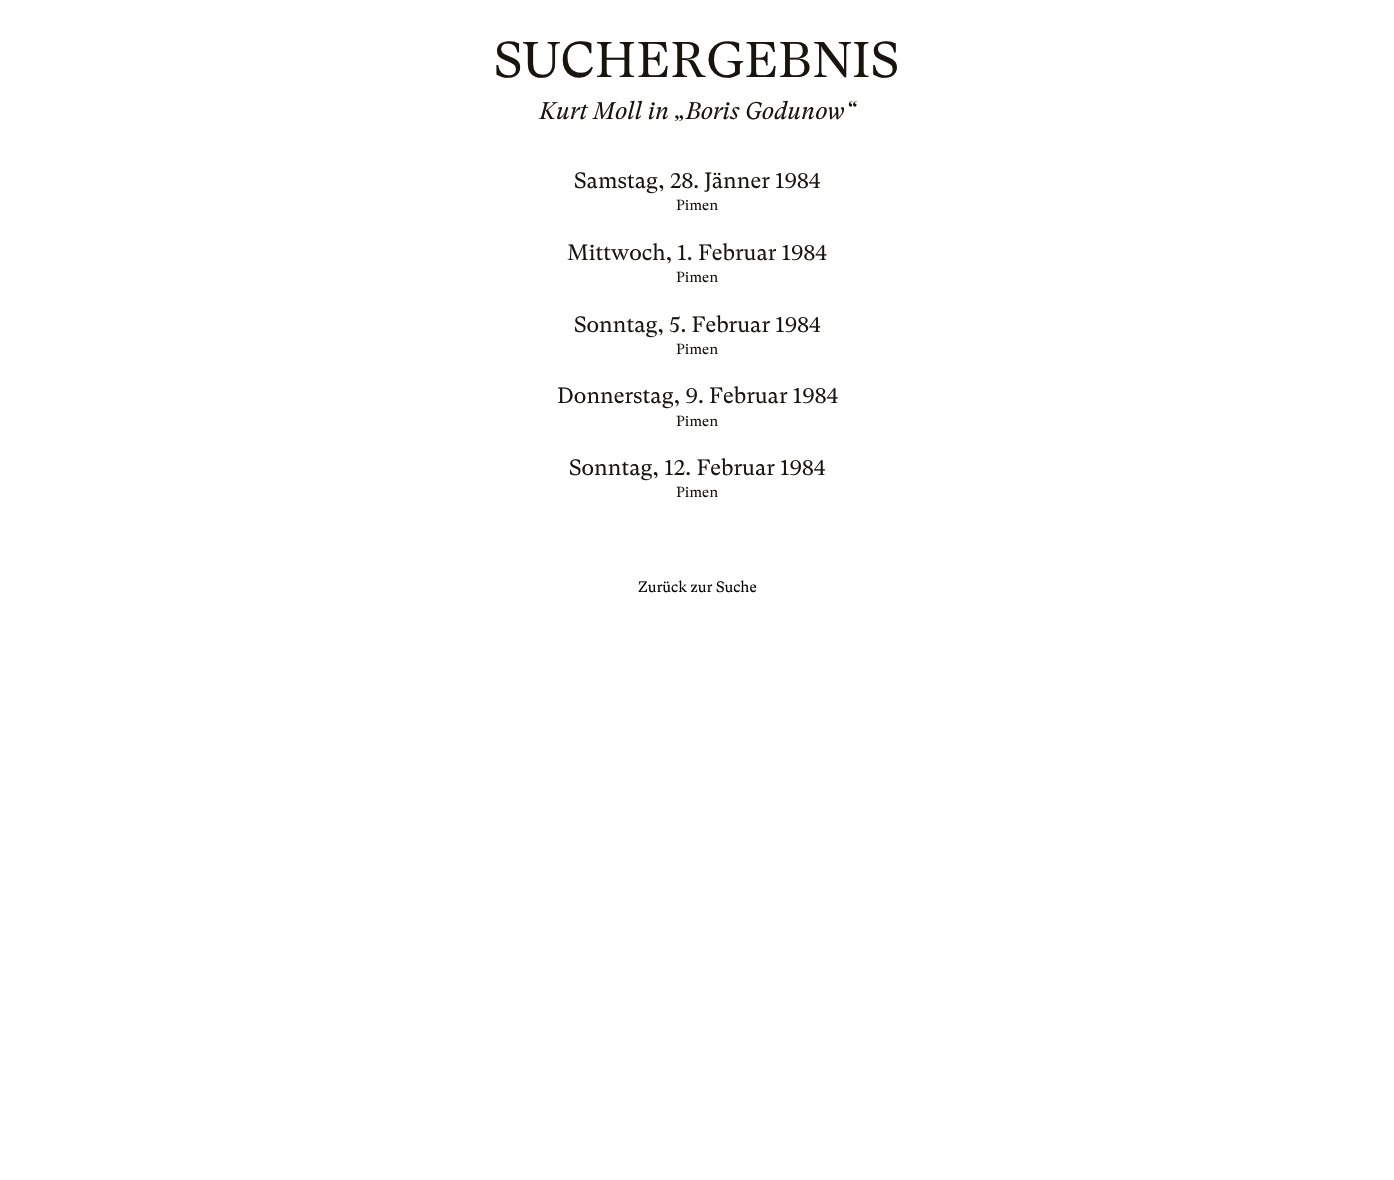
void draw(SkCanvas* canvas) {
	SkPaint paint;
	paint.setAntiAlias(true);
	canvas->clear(0xffffffff);
	SkFont f1(fontMgr->matchFamilyStyle("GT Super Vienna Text", SkFontStyle::Normal()), 50);
	f1.setSubpixel(true);
	paint.setColor(0xff19140e);
	canvas->drawString("SUCHERGEBNIS", 494, 77, f1, paint);
	SkFont f2(fontMgr->matchFamilyStyle("GT Super Vienna Text", SkFontStyle::Italic()), 24);
	f2.setSubpixel(true);
	canvas->drawString("Kurt Moll in „Boris Godunow“", 539, 119, f2, paint);
	SkFont f3(fontMgr->matchFamilyStyle("GT Super Vienna Text", SkFontStyle::Normal()), 22);
	f3.setSubpixel(true);
	canvas->drawString("Samstag, 28. Jänner 1984", 574, 188, f3, paint);
	SkFont f4(fontMgr->matchFamilyStyle("GT Super Vienna Text", SkFontStyle::Normal()), 14.5);
	f4.setSubpixel(true);
	canvas->drawString("Pimen", 676, 210, f4, paint);
	canvas->drawString("Mittwoch, 1. Februar 1984", 567, 260, f3, paint);
	canvas->drawString("Pimen", 676, 282, f4, paint);
	canvas->drawString("Sonntag, 5. Februar 1984", 574, 332, f3, paint);
	canvas->drawString("Pimen", 676, 354, f4, paint);
	canvas->drawString("Donnerstag, 9. Februar 1984", 557, 403, f3, paint);
	canvas->drawString("Pimen", 676, 426, f4, paint);
	canvas->drawString("Sonntag, 12. Februar 1984", 569, 475, f3, paint);
	canvas->drawString("Pimen", 676, 497, f4, paint);
	SkFont f5(fontMgr->matchFamilyStyle("GT Super Vienna Text", SkFontStyle::Normal()), 15);
	f5.setSubpixel(true);
	paint.setColor(0xff000000);
	canvas->drawString("Zurück zur Suche", 638, 592, f5, paint);
}
